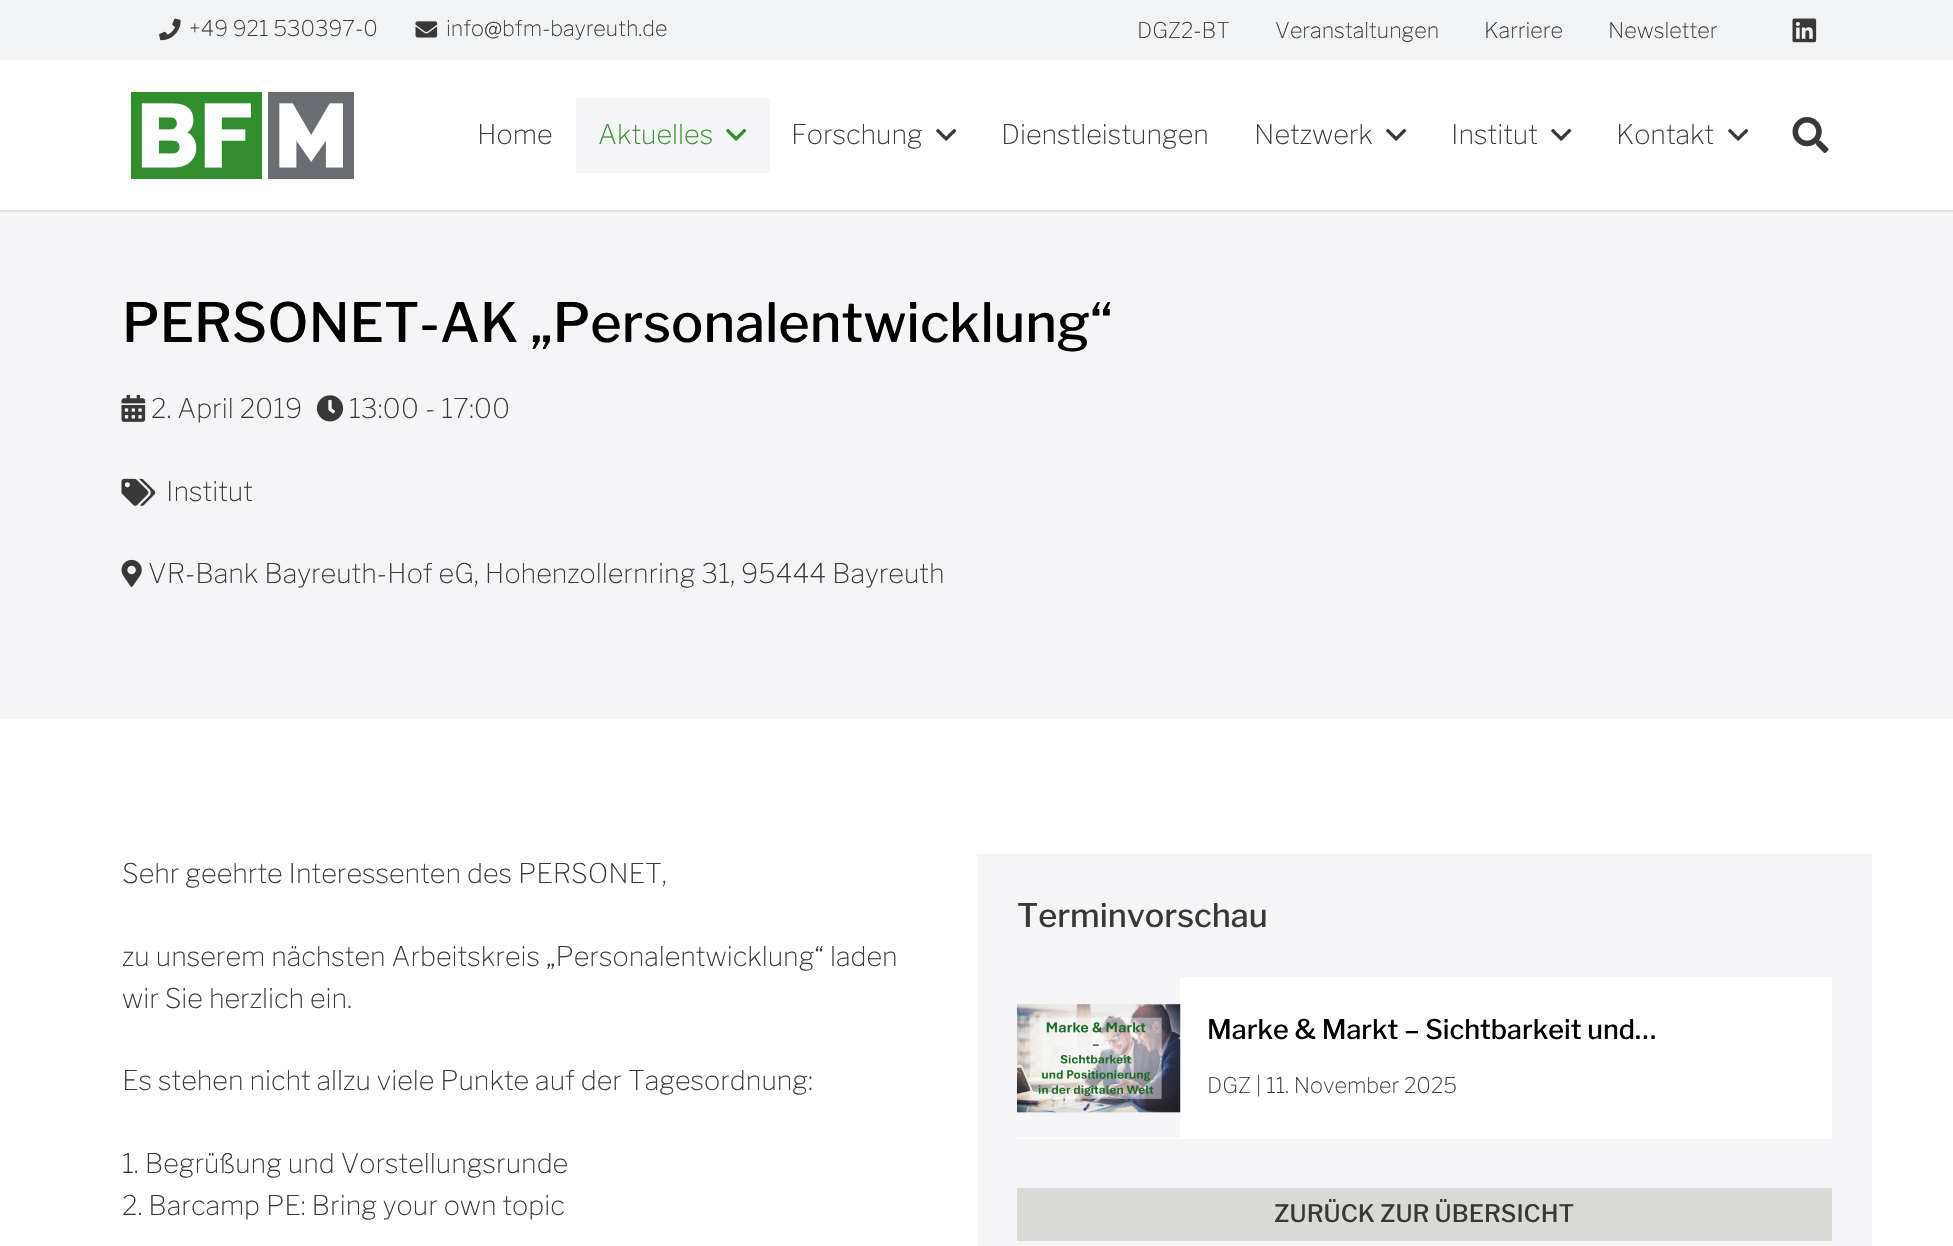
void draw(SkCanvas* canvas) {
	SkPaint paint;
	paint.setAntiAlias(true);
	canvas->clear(0xffffffff);
	paint.setColor(0xfff2f3f5);
	canvas->drawRect(SkRect::MakeXYWH(0, 0, 1953, 60), paint);
	canvas->drawImageRect(SkImages::DeferredFromEncodedData(SkData::MakeFromFileName("img1.png")), SkRect::MakeXYWH(159, 18, 22, 23), SkSamplingOptions());
	SkFont f1(fontMgr->matchFamilyStyle("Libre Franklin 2", SkFontStyle(100, SkFontStyle::kNormal_Width, SkFontStyle::kUpright_Slant)), 21.6);
	f1.setSubpixel(true);
	paint.setColor(0xff383838);
	canvas->drawString("+49 921 530397-0", 189, 36, f1, paint);
	canvas->drawImageRect(SkImages::DeferredFromEncodedData(SkData::MakeFromFileName("img2.png")), SkRect::MakeXYWH(415, 21, 23, 17), SkSamplingOptions());
	canvas->drawString("info@bfm-bayreuth.de", 446, 36, f1, paint);
	canvas->drawString("DGZ2-BT", 1137, 38, f1, paint);
	canvas->drawString("Veranstaltungen", 1275, 38, f1, paint);
	canvas->drawString("Karriere", 1484, 38, f1, paint);
	canvas->drawString("Newsletter", 1608, 38, f1, paint);
	canvas->drawImageRect(SkImages::DeferredFromEncodedData(SkData::MakeFromFileName("img3.png")), SkRect::MakeXYWH(1792, 18, 25, 25), SkSamplingOptions());
	paint.setColor(0xffe1e1e3);
	canvas->drawRect(SkRect::MakeXYWH(0, 210, 1953, 2), paint);
	canvas->drawImageRect(SkImages::DeferredFromEncodedData(SkData::MakeFromFileName("img4.png")), SkRect::MakeXYWH(131, 92, 223, 87), SkSamplingOptions());
	SkFont f2(fontMgr->matchFamilyStyle("Libre Franklin 2", SkFontStyle(100, SkFontStyle::kNormal_Width, SkFontStyle::kUpright_Slant)), 27);
	f2.setSubpixel(true);
	paint.setColor(0xff383838);
	canvas->drawString("Home", 477, 144, f2, paint);
	paint.setColor(0xfff5f5f7);
	canvas->drawRect(SkRect::MakeXYWH(576, 98, 194, 75), paint);
	paint.setColor(0xff318c2d);
	canvas->drawString("Aktuelles", 598, 144, f2, paint);
	canvas->drawImageRect(SkImages::DeferredFromEncodedData(SkData::MakeFromFileName("img5.png")), SkRect::MakeXYWH(726, 128, 21, 13), SkSamplingOptions());
	paint.setColor(0xff383838);
	canvas->drawString("Forschung", 791, 144, f2, paint);
	canvas->drawImageRect(SkImages::DeferredFromEncodedData(SkData::MakeFromFileName("img6.png")), SkRect::MakeXYWH(936, 128, 21, 13), SkSamplingOptions());
	canvas->drawString("Dienstleistungen", 1001, 144, f2, paint);
	canvas->drawString("Netzwerk", 1254, 144, f2, paint);
	canvas->drawImageRect(SkImages::DeferredFromEncodedData(SkData::MakeFromFileName("img6.png")), SkRect::MakeXYWH(1386, 128, 21, 13), SkSamplingOptions());
	canvas->drawString("Institut", 1451, 144, f2, paint);
	canvas->drawImageRect(SkImages::DeferredFromEncodedData(SkData::MakeFromFileName("img6.png")), SkRect::MakeXYWH(1551, 128, 21, 13), SkSamplingOptions());
	canvas->drawString("Kontakt", 1616, 144, f2, paint);
	canvas->drawImageRect(SkImages::DeferredFromEncodedData(SkData::MakeFromFileName("img6.png")), SkRect::MakeXYWH(1728, 128, 21, 13), SkSamplingOptions());
	canvas->drawImageRect(SkImages::DeferredFromEncodedData(SkData::MakeFromFileName("img7.png")), SkRect::MakeXYWH(1792, 117, 37, 36), SkSamplingOptions());
	paint.setColor(0xfff5f5f7);
	canvas->drawRect(SkRect::MakeXYWH(0, 212, 1953, 507), paint);
	SkFont f3(fontMgr->matchFamilyStyle("Libre Franklin", SkFontStyle(100, SkFontStyle::kNormal_Width, SkFontStyle::kUpright_Slant)), 54);
	f3.setSubpixel(true);
	paint.setColor(0xff000000);
	canvas->drawString("PERSONET-AK „Personalentwicklung“", 122, 342, f3, paint);
	canvas->drawImageRect(SkImages::DeferredFromEncodedData(SkData::MakeFromFileName("img8.png")), SkRect::MakeXYWH(121, 394, 25, 28), SkSamplingOptions());
	paint.setColor(0xff383838);
	canvas->drawString("2. April 2019", 151, 418, f2, paint);
	canvas->drawImageRect(SkImages::DeferredFromEncodedData(SkData::MakeFromFileName("img9.png")), SkRect::MakeXYWH(316, 395, 28, 27), SkSamplingOptions());
	canvas->drawString("13:00 - 17:00", 349, 418, f2, paint);
	canvas->drawImageRect(SkImages::DeferredFromEncodedData(SkData::MakeFromFileName("img10.png")), SkRect::MakeXYWH(121, 478, 35, 28), SkSamplingOptions());
	canvas->drawString("Institut", 166, 501, f2, paint);
	canvas->drawImageRect(SkImages::DeferredFromEncodedData(SkData::MakeFromFileName("img11.png")), SkRect::MakeXYWH(121, 559, 21, 28), SkSamplingOptions());
	canvas->drawString("VR-Bank Bayreuth-Hof eG, Hohenzollernring 31, 95444 Bayreuth", 148, 583, f2, paint);
	canvas->drawString("Sehr geehrte Interessenten des PERSONET,", 122, 883, f2, paint);
	canvas->drawString("zu unserem nächsten Arbeitskreis „Personalentwicklung“ laden", 122, 966, f2, paint);
	canvas->drawString("wir Sie herzlich ein.", 122, 1008, f2, paint);
	canvas->drawString("Es stehen nicht allzu viele Punkte auf der Tagesordnung:", 122, 1090, f2, paint);
	canvas->drawString("1. Begrüßung und Vorstellungsrunde", 122, 1173, f2, paint);
	canvas->drawString("2. Barcamp PE: Bring your own topic", 122, 1215, f2, paint);
	paint.setColor(0xfff5f5f7);
	canvas->drawRect(SkRect::MakeXYWH(977, 854, 895, 392), paint);
	SkFont f4(fontMgr->matchFamilyStyle("Libre Franklin", SkFontStyle(100, SkFontStyle::kNormal_Width, SkFontStyle::kUpright_Slant)), 32.5);
	f4.setSubpixel(true);
	paint.setColor(0xff383838);
	canvas->drawString("Terminvorschau", 1017, 927, f4, paint);
	paint.setColor(0xffffffff);
	canvas->drawRect(SkRect::MakeXYWH(1017, 977, 815, 162), paint);
	canvas->drawImageRect(SkImages::DeferredFromEncodedData(SkData::MakeFromFileName("img12.png")), SkRect::MakeXYWH(1017, 977, 164, 161), SkSamplingOptions());
	SkFont f5(fontMgr->matchFamilyStyle("Libre Franklin", SkFontStyle(100, SkFontStyle::kNormal_Width, SkFontStyle::kUpright_Slant)), 27);
	f5.setSubpixel(true);
	paint.setColor(0xff000000);
	canvas->drawString("Marke & Markt – Sichtbarkeit und…", 1207, 1039, f5, paint);
	paint.setColor(0xff383838);
	canvas->drawString("DGZ | 11. November 2025", 1207, 1093, f1, paint);
	paint.setColor(0xffd9d9d6);
	canvas->drawRect(SkRect::MakeXYWH(1017, 1188, 815, 53), paint);
	SkFont f6(fontMgr->matchFamilyStyle("Libre Franklin", SkFontStyle(100, SkFontStyle::kNormal_Width, SkFontStyle::kUpright_Slant)), 24);
	f6.setSubpixel(true);
	paint.setColor(0xff383838);
	canvas->drawString("ZURÜCK ZUR ÜBERSICHT", 1274, 1222, f6, paint);
}
